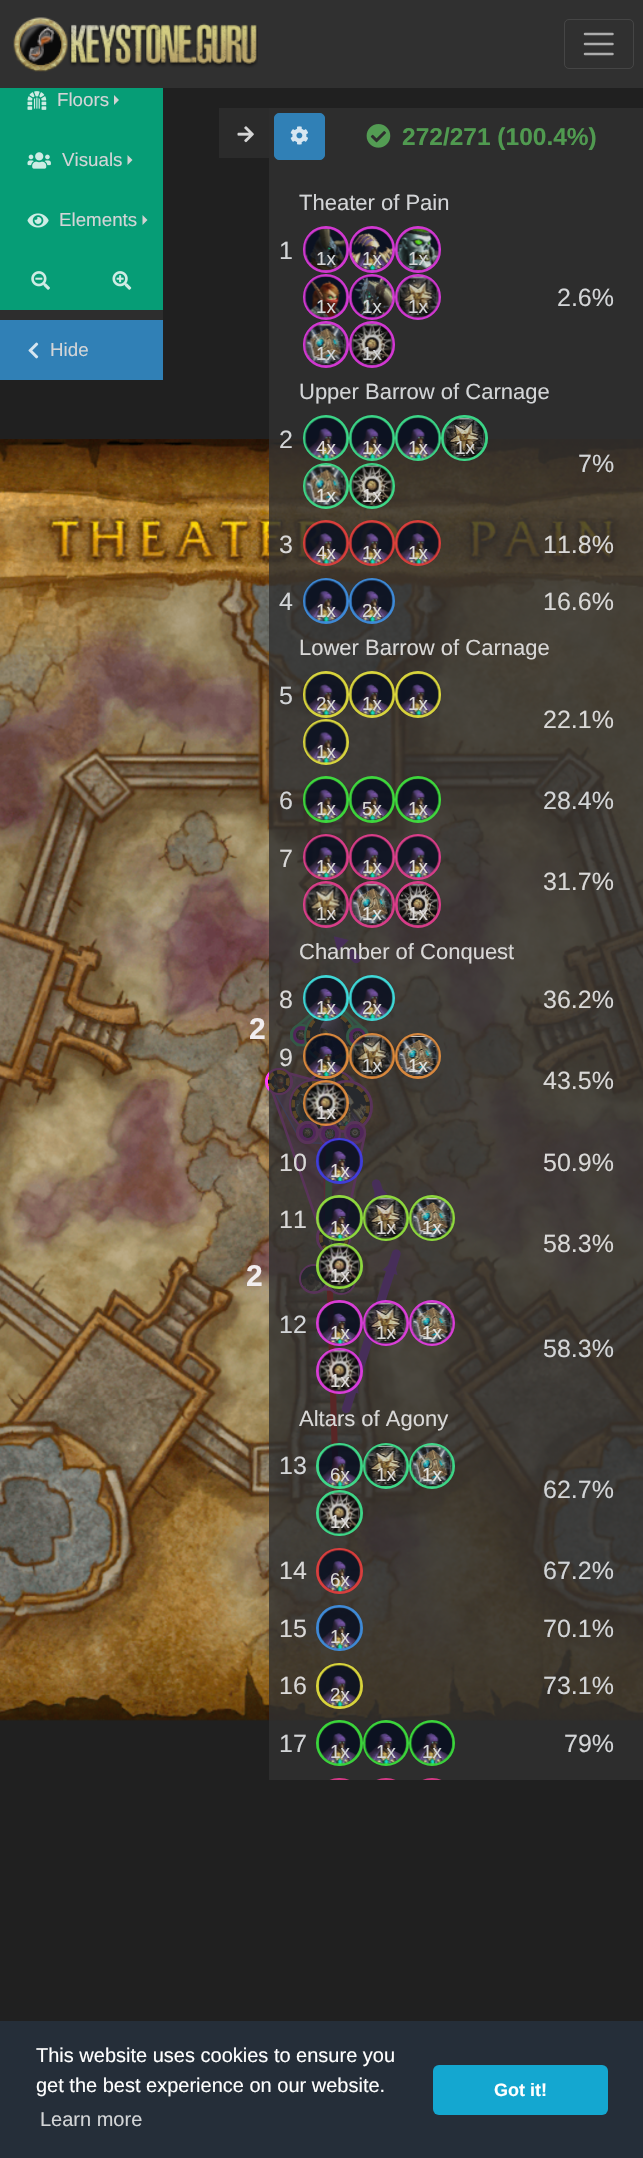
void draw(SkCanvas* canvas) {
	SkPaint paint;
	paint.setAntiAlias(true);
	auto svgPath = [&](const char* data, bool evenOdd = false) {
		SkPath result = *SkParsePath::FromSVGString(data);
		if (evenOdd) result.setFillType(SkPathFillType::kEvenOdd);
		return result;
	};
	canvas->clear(0xff202020);
	paint.setColor(0xff303030);
	canvas->drawRect(SkRect::MakeXYWH(0, 0, 643, 88), paint);
	canvas->drawImageRect(SkImages::DeferredFromEncodedData(SkData::MakeFromFileName("img1.png")), SkRect::MakeXYWH(13, 17, 245, 55), SkSamplingOptions());
	paint.setStroke(true);
	paint.setStrokeWidth(1);
	paint.setColor(0xff454545);
	canvas->drawRoundRect(SkRect::MakeXYWH(564.5, 19.5, 69, 49), 4.5, 4.5, paint);
	paint.setStrokeWidth(2.5);
	paint.setStrokeCap(SkPaint::kRound_Cap);
	paint.setColor(0xffacacac);
	canvas->drawPath(svgPath("M585 34H612.5M585 44H612.5M585 54H612.5"), paint);
	paint.setStroke(false);
	paint.setColor(0xff2d2d2d);
	canvas->drawRect(SkRect::MakeXYWH(0, 310, 163, 10), paint);
	paint.setColor(0xff069d76);
	canvas->drawRect(SkRect::MakeXYWH(0, 88, 163, 162), paint);
	canvas->drawImageRect(SkImages::DeferredFromEncodedData(SkData::MakeFromFileName("img2.png")), SkRect::MakeXYWH(27, 91, 20, 19), SkSamplingOptions());
	SkFont f1(fontMgr->matchFamilyStyle("Liberation Sans", SkFontStyle::Normal()), 18.75);
	f1.setSubpixel(true);
	paint.setColor(0xffd3d5d7);
	canvas->drawString("Floors", 57, 106, f1, paint);
	paint.setColor(0xffd2d2d2);
	canvas->drawPath(svgPath("M114 105V95L119 100Z"), paint);
	canvas->drawImageRect(SkImages::DeferredFromEncodedData(SkData::MakeFromFileName("img3.png")), SkRect::MakeXYWH(27, 152, 24, 17), SkSamplingOptions());
	paint.setColor(0xffd3d5d7);
	canvas->drawString("Visuals", 62, 166, f1, paint);
	paint.setColor(0xffd2d2d2);
	canvas->drawPath(svgPath("M127.5 165V155L132.5 160Z"), paint);
	canvas->drawImageRect(SkImages::DeferredFromEncodedData(SkData::MakeFromFileName("img4.png")), SkRect::MakeXYWH(27, 213, 22, 15), SkSamplingOptions());
	paint.setColor(0xffd3d5d7);
	canvas->drawString("Elements", 59, 226, f1, paint);
	paint.setColor(0xffd2d2d2);
	canvas->drawPath(svgPath("M142.5 225V215L147.5 220Z"), paint);
	paint.setColor(0xff069d76);
	canvas->drawRect(SkRect::MakeXYWH(0, 250, 163, 60), paint);
	canvas->drawImageRect(SkImages::DeferredFromEncodedData(SkData::MakeFromFileName("img5.png")), SkRect::MakeXYWH(31, 271, 19, 19), SkSamplingOptions());
	canvas->drawImageRect(SkImages::DeferredFromEncodedData(SkData::MakeFromFileName("img6.png")), SkRect::MakeXYWH(112, 271, 20, 19), SkSamplingOptions());
	paint.setColor(0xff3080b6);
	canvas->drawRect(SkRect::MakeXYWH(0, 320, 163, 60), paint);
	canvas->drawImageRect(SkImages::DeferredFromEncodedData(SkData::MakeFromFileName("img7.png")), SkRect::MakeXYWH(28, 342, 11, 17), SkSamplingOptions());
	paint.setColor(0xffd3d5d7);
	canvas->drawString("Hide", 50, 356, f1, paint);
	canvas->drawImageRect(SkImages::DeferredFromEncodedData(SkData::MakeFromFileName("img10.png")), SkRect::MakeXYWH(0, 759, 321, 320), SkSamplingOptions());
	canvas->drawImageRect(SkImages::DeferredFromEncodedData(SkData::MakeFromFileName("img11.png")), SkRect::MakeXYWH(321, 759, 322, 320), SkSamplingOptions());
	canvas->drawImageRect(SkImages::DeferredFromEncodedData(SkData::MakeFromFileName("img8.png")), SkRect::MakeXYWH(0, 439, 323, 322), SkSamplingOptions());
	canvas->drawImageRect(SkImages::DeferredFromEncodedData(SkData::MakeFromFileName("img9.png")), SkRect::MakeXYWH(321, 439, 322, 322), SkSamplingOptions());
	canvas->drawImageRect(SkImages::DeferredFromEncodedData(SkData::MakeFromFileName("img12.png")), SkRect::MakeXYWH(0, 1079, 321, 320), SkSamplingOptions());
	canvas->drawImageRect(SkImages::DeferredFromEncodedData(SkData::MakeFromFileName("img13.png")), SkRect::MakeXYWH(321, 1079, 322, 320), SkSamplingOptions());
	canvas->drawImageRect(SkImages::DeferredFromEncodedData(SkData::MakeFromFileName("img14.png")), SkRect::MakeXYWH(0, 1399, 323, 322), SkSamplingOptions());
	canvas->drawImageRect(SkImages::DeferredFromEncodedData(SkData::MakeFromFileName("img15.png")), SkRect::MakeXYWH(321, 1399, 322, 322), SkSamplingOptions());
	canvas->drawImageRect(SkImages::DeferredFromEncodedData(SkData::MakeFromFileName("img16.png")), SkRect::MakeXYWH(268, 936, 133, 566), SkSamplingOptions());
	SkFont f2(fontMgr->matchFamilyStyle("Liberation Sans", SkFontStyle::Bold()), 30);
	f2.setSubpixel(true);
	paint.setColor(0xfff1edef);
	canvas->drawString("2", 249, 1039, f2, paint);
	canvas->drawString("2", 246, 1286, f2, paint);
	paint.setStroke(true);
	paint.setStrokeWidth(3);
	paint.setStrokeCap(SkPaint::kButt_Cap);
	paint.setColor(0xff3eff9e);
	canvas->drawRoundRect(SkRect::MakeXYWH(320.5, 1001.5, 19, 20), 9.5, 9.5, paint);
	paint.setStrokeWidth(4);
	paint.setColor(0xffd000ff);
	canvas->drawRoundRect(SkRect::MakeXYWH(323, 1005, 14, 13), 6.5, 6.5, paint);
	canvas->drawImageRect(SkImages::DeferredFromEncodedData(SkData::MakeFromFileName("img17.png")), SkRect::MakeXYWH(325, 1006, 10, 8), SkSamplingOptions());
	paint.setStrokeWidth(3);
	paint.setColor(0xff3eff9e);
	canvas->drawRoundRect(SkRect::MakeXYWH(291.5, 1025.5, 20, 19), 9.5, 9.5, paint);
	paint.setStrokeWidth(4);
	paint.setColor(0xffd000ff);
	canvas->drawRoundRect(SkRect::MakeXYWH(295, 1028, 13, 14), 6.5, 6.5, paint);
	paint.setStroke(false);
	paint.setColor(0xff040c1f);
	canvas->drawCircle(301, 1035, 5, paint);
	canvas->drawImageRect(SkImages::DeferredFromEncodedData(SkData::MakeFromFileName("img18.png")), SkRect::MakeXYWH(296, 1030, 9, 10), SkSamplingOptions());
	paint.setStroke(true);
	paint.setStrokeWidth(3);
	paint.setColor(0xff3eff9e);
	canvas->drawRoundRect(SkRect::MakeXYWH(305.5, 1011.5, 49, 50), 24.5, 24.5, paint);
	paint.setStroke(false);
	paint.setColor(0xff000000);
	canvas->drawRoundRect(SkRect::MakeXYWH(306, 1013, 48, 47), 23.5, 23.5, paint);
	paint.setStroke(true);
	paint.setStrokeWidth(3.8);
	paint.setColor(0xffff9900);
	paint.setPathEffect(SkDashPathEffect::Make({{7.5f, 3.75f}}, 0));
	canvas->drawPath(svgPath("M330 1014.5C359 1014.5 359 1058 330 1058C301 1058 301 1014.5 330 1014.5Z"), paint);
	paint.setPathEffect(nullptr);
	paint.setStroke(false);
	paint.setColor(0xff040c1f);
	canvas->drawCircle(330, 1036, 20, paint);
	canvas->drawImageRect(SkImages::DeferredFromEncodedData(SkData::MakeFromFileName("img19.png")), SkRect::MakeXYWH(310, 1016, 40, 41), SkSamplingOptions());
	paint.setStroke(true);
	paint.setStrokeWidth(3);
	paint.setColor(0xff3eff9e);
	canvas->drawCircle(357.5, 1036.5, 10, paint);
	paint.setStrokeWidth(4);
	paint.setColor(0xffd000ff);
	canvas->drawCircle(357.5, 1036.5, 6.5, paint);
	paint.setStroke(false);
	paint.setColor(0xff040c1f);
	canvas->drawCircle(358, 1036, 5, paint);
	canvas->drawImageRect(SkImages::DeferredFromEncodedData(SkData::MakeFromFileName("img20.png")), SkRect::MakeXYWH(352, 1031, 11, 11), SkSamplingOptions());
	paint.setStroke(true);
	paint.setStrokeWidth(3);
	paint.setColor(0xffff3eff);
	canvas->drawRoundRect(SkRect::MakeXYWH(266.5, 1069.5, 25, 24), 12, 12, paint);
	paint.setStroke(false);
	paint.setColor(0xff000000);
	canvas->drawRoundRect(SkRect::MakeXYWH(268, 1070, 22, 23), 11, 11, paint);
	paint.setStroke(true);
	paint.setStrokeWidth(3.8);
	paint.setColor(0xffff9900);
	paint.setPathEffect(SkDashPathEffect::Make({{7.5f, 3.75f}}, 0));
	canvas->drawPath(svgPath("M279 1072C291 1072 291 1090.5 279 1090.5C266.5 1090.5 266.5 1072 279 1072Z"), paint);
	paint.setPathEffect(nullptr);
	paint.setStroke(false);
	paint.setColor(0xff040c1f);
	canvas->drawCircle(278.5, 1081.5, 7.5, paint);
	canvas->drawImageRect(SkImages::DeferredFromEncodedData(SkData::MakeFromFileName("img21.png")), SkRect::MakeXYWH(271, 1073, 16, 16), SkSamplingOptions());
	paint.setStroke(true);
	paint.setStrokeWidth(3);
	paint.setColor(0xffff3eff);
	canvas->drawRoundRect(SkRect::MakeXYWH(306.5, 1070.5, 50, 49), 24.5, 24.5, paint);
	paint.setStroke(false);
	paint.setColor(0xff000000);
	canvas->drawRoundRect(SkRect::MakeXYWH(308, 1071, 47, 48), 23.5, 23.5, paint);
	paint.setStroke(true);
	paint.setStrokeWidth(3.8);
	paint.setColor(0xffff9900);
	paint.setPathEffect(SkDashPathEffect::Make({{7.5f, 3.75f}}, 0));
	canvas->drawPath(svgPath("M331 1073C360 1073 360 1117 331 1117C302.5 1117 302.5 1073 331 1073Z"), paint);
	paint.setPathEffect(nullptr);
	paint.setStroke(false);
	paint.setColor(0xff040c1f);
	canvas->drawCircle(331, 1095, 20, paint);
	canvas->drawImageRect(SkImages::DeferredFromEncodedData(SkData::MakeFromFileName("img22.png")), SkRect::MakeXYWH(318, 1075, 28, 12), SkSamplingOptions());
	paint.setStroke(true);
	paint.setStrokeWidth(3);
	paint.setColor(0xffff3eff);
	canvas->drawCircle(315, 1105, 24.5, paint);
	paint.setStroke(false);
	paint.setColor(0xff000000);
	canvas->drawCircle(315, 1105, 24, paint);
	paint.setStroke(true);
	paint.setStrokeWidth(3.8);
	paint.setColor(0xffff9900);
	paint.setPathEffect(SkDashPathEffect::Make({{7.5f, 3.75f}}, 0));
	canvas->drawPath(svgPath("M315 1083C344 1083 344 1127 315 1127C286 1127 286 1083 315 1083Z"), paint);
	paint.setPathEffect(nullptr);
	paint.setStroke(false);
	paint.setColor(0xff040c1f);
	canvas->drawCircle(315, 1105, 20, paint);
	canvas->drawImageRect(SkImages::DeferredFromEncodedData(SkData::MakeFromFileName("img23.png")), SkRect::MakeXYWH(295, 1085, 35, 40), SkSamplingOptions());
	paint.setStroke(true);
	paint.setStrokeWidth(3);
	paint.setColor(0xffff3eff);
	canvas->drawCircle(346.5, 1106.5, 25, paint);
	paint.setStroke(false);
	paint.setColor(0xff000000);
	canvas->drawCircle(346.5, 1106.5, 23.5, paint);
	paint.setStroke(true);
	paint.setStrokeWidth(3.8);
	paint.setColor(0xffff9900);
	paint.setPathEffect(SkDashPathEffect::Make({{7.5f, 3.75f}}, 0));
	canvas->drawPath(svgPath("M346 1084.5C375 1084.5 375 1128 346 1128C317.5 1128 317.5 1084.5 346 1084.5Z"), paint);
	paint.setPathEffect(nullptr);
	paint.setStroke(false);
	paint.setColor(0xff040c1f);
	canvas->drawCircle(346, 1106, 20, paint);
	canvas->drawImageRect(SkImages::DeferredFromEncodedData(SkData::MakeFromFileName("img24.png")), SkRect::MakeXYWH(326, 1086, 41, 41), SkSamplingOptions());
	paint.setStroke(true);
	paint.setStrokeWidth(3);
	paint.setColor(0xffff3eff);
	canvas->drawCircle(307.5, 1132.5, 10, paint);
	paint.setStrokeWidth(4);
	paint.setColor(0xffd000ff);
	canvas->drawCircle(307.5, 1132.5, 6.5, paint);
	paint.setStroke(false);
	paint.setColor(0xff040c1f);
	canvas->drawCircle(308, 1133, 5, paint);
	canvas->drawImageRect(SkImages::DeferredFromEncodedData(SkData::MakeFromFileName("img25.png")), SkRect::MakeXYWH(302, 1127, 11, 11), SkSamplingOptions());
	paint.setStroke(true);
	paint.setStrokeWidth(3);
	paint.setColor(0xffff3eff);
	canvas->drawCircle(330, 1134, 9.5, paint);
	paint.setStrokeWidth(4);
	paint.setColor(0xffd000ff);
	canvas->drawCircle(330, 1134, 7, paint);
	paint.setStroke(false);
	paint.setColor(0xff040c1f);
	canvas->drawCircle(330, 1134, 5, paint);
	canvas->drawImageRect(SkImages::DeferredFromEncodedData(SkData::MakeFromFileName("img26.png")), SkRect::MakeXYWH(325, 1128, 10, 11), SkSamplingOptions());
	paint.setStroke(true);
	paint.setStrokeWidth(3);
	paint.setColor(0xffff3eff);
	canvas->drawRoundRect(SkRect::MakeXYWH(345.5, 1122.5, 19, 20), 9.5, 9.5, paint);
	paint.setStrokeWidth(4);
	paint.setColor(0xffd000ff);
	canvas->drawRoundRect(SkRect::MakeXYWH(348, 1126, 14, 13), 6.5, 6.5, paint);
	paint.setStroke(false);
	paint.setColor(0xff040c1f);
	canvas->drawCircle(355, 1133, 5, paint);
	canvas->drawImageRect(SkImages::DeferredFromEncodedData(SkData::MakeFromFileName("img27.png")), SkRect::MakeXYWH(350, 1127, 10, 11), SkSamplingOptions());
	paint.setColor(0xff000000);
	canvas->drawCircle(333.5, 1237.5, 16, paint);
	paint.setStroke(true);
	paint.setStrokeWidth(3);
	paint.setColor(0xffff3eff);
	canvas->drawCircle(333.5, 1237.5, 16, paint);
	paint.setStroke(false);
	paint.setColor(0xff000000);
	canvas->drawCircle(334, 1238, 15, paint);
	paint.setStroke(true);
	paint.setStrokeWidth(3.8);
	paint.setColor(0xffff9900);
	paint.setPathEffect(SkDashPathEffect::Make({{7.5f, 3.75f}}, 0));
	canvas->drawPath(svgPath("M334 1224.5C351 1224.5 351 1250.5 334 1250.5C316.5 1250.5 316.5 1224.5 334 1224.5Z"), paint);
	paint.setPathEffect(nullptr);
	paint.setStroke(false);
	paint.setColor(0xff040c1f);
	canvas->drawRoundRect(SkRect::MakeXYWH(323, 1226, 22, 23), 11, 11, paint);
	canvas->drawImageRect(SkImages::DeferredFromEncodedData(SkData::MakeFromFileName("img28.png")), SkRect::MakeXYWH(322, 1226, 23, 23), SkSamplingOptions());
	paint.setStroke(true);
	paint.setStrokeWidth(3);
	paint.setColor(0xffff3eff);
	canvas->drawCircle(329, 1269, 12.5, paint);
	canvas->drawImageRect(SkImages::DeferredFromEncodedData(SkData::MakeFromFileName("img29.png")), SkRect::MakeXYWH(318, 1257, 22, 21), SkSamplingOptions());
	canvas->drawCircle(314, 1279, 13.5, paint);
	paint.setStroke(false);
	paint.setColor(0xff040c1f);
	canvas->drawCircle(313.5, 1278.5, 12.5, paint);
	canvas->drawImageRect(SkImages::DeferredFromEncodedData(SkData::MakeFromFileName("img30.png")), SkRect::MakeXYWH(301, 1266, 26, 26), SkSamplingOptions());
	paint.setStroke(true);
	paint.setColor(0xffff3eff);
	canvas->drawCircle(341, 1280, 13.5, paint);
	paint.setStroke(false);
	paint.setColor(0xff040c1f);
	canvas->drawCircle(341.5, 1280.5, 12.5, paint);
	canvas->drawImageRect(SkImages::DeferredFromEncodedData(SkData::MakeFromFileName("img31.png")), SkRect::MakeXYWH(328, 1267, 26, 26), SkSamplingOptions());
	paint.setColor(0xcc303030);
	canvas->drawRect(SkRect::MakeXYWH(269, 108, 374, 1672), paint);
	paint.setColor(0xff2b2b2b);
	canvas->drawRect(SkRect::MakeXYWH(219, 108, 50, 50), paint);
	canvas->drawImageRect(SkImages::DeferredFromEncodedData(SkData::MakeFromFileName("img32.png")), SkRect::MakeXYWH(237, 126, 17, 17), SkSamplingOptions());
	paint.setColor(0xff3080b6);
	canvas->drawRoundRect(SkRect::MakeXYWH(274.5, 113.5, 50, 46), 4.5, 4.5, paint);
	paint.setStroke(true);
	paint.setStrokeWidth(1);
	canvas->drawRoundRect(SkRect::MakeXYWH(274.5, 113.5, 50, 46), 4.5, 4.5, paint);
	canvas->drawImageRect(SkImages::DeferredFromEncodedData(SkData::MakeFromFileName("img33.png")), SkRect::MakeXYWH(290, 126, 18, 19), SkSamplingOptions());
	canvas->drawImageRect(SkImages::DeferredFromEncodedData(SkData::MakeFromFileName("img34.png")), SkRect::MakeXYWH(366, 124, 25, 24), SkSamplingOptions());
	SkFont f3(fontMgr->matchFamilyStyle("Liberation Sans", SkFontStyle::Bold()), 24.5);
	f3.setSubpixel(true);
	paint.setStroke(false);
	paint.setColor(0xff509a50);
	canvas->drawString("272/271 (100.4%)", 402, 145, f3, paint);
	SkFont f4(fontMgr->matchFamilyStyle("Liberation Sans", SkFontStyle::Normal()), 22);
	f4.setSubpixel(true);
	paint.setColor(0xffd3d5d7);
	canvas->drawString("Theater of Pain", 299, 210, f4, paint);
	SkFont f5(fontMgr->matchFamilyStyle("Liberation Sans", SkFontStyle::Normal()), 25);
	f5.setSubpixel(true);
	canvas->drawString("1", 279, 259, f5, paint);
	paint.setStroke(true);
	paint.setStrokeWidth(3);
	paint.setColor(0xffd238d2);
	canvas->drawRoundRect(SkRect::MakeXYWH(304.5, 227.5, 43, 44), 21.5, 21.5, paint);
	canvas->drawImageRect(SkImages::DeferredFromEncodedData(SkData::MakeFromFileName("img35.png")), SkRect::MakeXYWH(304, 228, 43, 43), SkSamplingOptions());
	paint.setStroke(false);
	paint.setColor(0xffd3d5d7);
	canvas->drawString("1x", 316, 265, f1, paint);
	paint.setStroke(true);
	paint.setColor(0xffd238d2);
	canvas->drawRoundRect(SkRect::MakeXYWH(350.5, 227.5, 43, 44), 21.5, 21.5, paint);
	canvas->drawImageRect(SkImages::DeferredFromEncodedData(SkData::MakeFromFileName("img36.png")), SkRect::MakeXYWH(350, 228, 43, 43), SkSamplingOptions());
	paint.setStroke(false);
	paint.setColor(0xffd3d5d7);
	canvas->drawString("1x", 362, 265, f1, paint);
	paint.setStroke(true);
	paint.setColor(0xffd238d2);
	canvas->drawRoundRect(SkRect::MakeXYWH(396.5, 227.5, 43, 44), 21.5, 21.5, paint);
	canvas->drawImageRect(SkImages::DeferredFromEncodedData(SkData::MakeFromFileName("img37.png")), SkRect::MakeXYWH(397, 228, 42, 43), SkSamplingOptions());
	paint.setStroke(false);
	paint.setColor(0xffd3d5d7);
	canvas->drawString("1x", 408, 265, f1, paint);
	paint.setStroke(true);
	paint.setColor(0xffd238d2);
	canvas->drawCircle(326, 297, 21.5, paint);
	canvas->drawImageRect(SkImages::DeferredFromEncodedData(SkData::MakeFromFileName("img38.png")), SkRect::MakeXYWH(304, 275, 43, 43), SkSamplingOptions());
	paint.setStroke(false);
	paint.setColor(0xffd3d5d7);
	canvas->drawString("1x", 316, 313, f1, paint);
	paint.setStroke(true);
	paint.setColor(0xffd238d2);
	canvas->drawCircle(372, 297, 21.5, paint);
	canvas->drawImageRect(SkImages::DeferredFromEncodedData(SkData::MakeFromFileName("img39.png")), SkRect::MakeXYWH(350, 275, 43, 43), SkSamplingOptions());
	paint.setStroke(false);
	paint.setColor(0xffd3d5d7);
	canvas->drawString("1x", 362, 313, f1, paint);
	paint.setStroke(true);
	paint.setColor(0xffd238d2);
	canvas->drawCircle(418, 297, 21.5, paint);
	canvas->drawImageRect(SkImages::DeferredFromEncodedData(SkData::MakeFromFileName("img40.png")), SkRect::MakeXYWH(397, 275, 42, 43), SkSamplingOptions());
	paint.setStroke(false);
	paint.setColor(0xffd3d5d7);
	canvas->drawString("1x", 408, 313, f1, paint);
	paint.setStroke(true);
	paint.setColor(0xffd238d2);
	canvas->drawRoundRect(SkRect::MakeXYWH(304.5, 322.5, 43, 44), 21.5, 21.5, paint);
	canvas->drawImageRect(SkImages::DeferredFromEncodedData(SkData::MakeFromFileName("img41.png")), SkRect::MakeXYWH(304, 323, 43, 43), SkSamplingOptions());
	paint.setStroke(false);
	paint.setColor(0xffd3d5d7);
	canvas->drawString("1x", 316, 360, f1, paint);
	paint.setStroke(true);
	paint.setColor(0xffd238d2);
	canvas->drawRoundRect(SkRect::MakeXYWH(350.5, 322.5, 43, 44), 21.5, 21.5, paint);
	canvas->drawImageRect(SkImages::DeferredFromEncodedData(SkData::MakeFromFileName("img42.png")), SkRect::MakeXYWH(350, 323, 43, 43), SkSamplingOptions());
	paint.setStroke(false);
	paint.setColor(0xffd3d5d7);
	canvas->drawString("1x", 362, 360, f1, paint);
	canvas->drawString("2.6%", 557, 306, f5, paint);
	canvas->drawString("Upper Barrow of Carnage", 299, 399, f4, paint);
	canvas->drawString("2", 279, 448, f5, paint);
	paint.setStroke(true);
	paint.setColor(0xcc3eff9e);
	canvas->drawCircle(326, 438, 21.5, paint);
	canvas->drawImageRect(SkImages::DeferredFromEncodedData(SkData::MakeFromFileName("img43.png")), SkRect::MakeXYWH(304, 417, 43, 43), SkSamplingOptions());
	paint.setStroke(false);
	paint.setColor(0xffdfdcdb);
	canvas->drawString("4x", 316, 454, f1, paint);
	paint.setStroke(true);
	paint.setColor(0xcc3eff9e);
	canvas->drawCircle(372, 438, 21.5, paint);
	canvas->drawImageRect(SkImages::DeferredFromEncodedData(SkData::MakeFromFileName("img44.png")), SkRect::MakeXYWH(350, 417, 43, 43), SkSamplingOptions());
	paint.setStroke(false);
	paint.setColor(0xffd9d8d7);
	canvas->drawString("1x", 362, 454, f1, paint);
	paint.setStroke(true);
	paint.setColor(0xcc3eff9e);
	canvas->drawCircle(418, 438, 21.5, paint);
	canvas->drawImageRect(SkImages::DeferredFromEncodedData(SkData::MakeFromFileName("img45.png")), SkRect::MakeXYWH(397, 417, 42, 43), SkSamplingOptions());
	paint.setStroke(false);
	paint.setColor(0xffd9d8d7);
	canvas->drawString("1x", 408, 454, f1, paint);
	paint.setStroke(true);
	paint.setColor(0xcc3eff9e);
	canvas->drawRoundRect(SkRect::MakeXYWH(442.5, 416.5, 44, 43), 21.5, 21.5, paint);
	canvas->drawImageRect(SkImages::DeferredFromEncodedData(SkData::MakeFromFileName("img46.png")), SkRect::MakeXYWH(443, 417, 43, 42), SkSamplingOptions());
	paint.setStroke(false);
	paint.setColor(0xffd3d5d7);
	canvas->drawString("1x", 455, 454, f1, paint);
	paint.setStroke(true);
	paint.setColor(0xcc3eff9e);
	canvas->drawCircle(326, 486, 21.5, paint);
	canvas->drawImageRect(SkImages::DeferredFromEncodedData(SkData::MakeFromFileName("img47.png")), SkRect::MakeXYWH(304, 464, 43, 43), SkSamplingOptions());
	paint.setStroke(false);
	paint.setColor(0xffe2e2df);
	canvas->drawString("1x", 316, 502, f1, paint);
	paint.setStroke(true);
	paint.setColor(0xcc3eff9e);
	canvas->drawCircle(372, 486, 21.5, paint);
	canvas->drawImageRect(SkImages::DeferredFromEncodedData(SkData::MakeFromFileName("img48.png")), SkRect::MakeXYWH(350, 464, 43, 43), SkSamplingOptions());
	paint.setStroke(false);
	paint.setColor(0xffdfdcdb);
	canvas->drawString("1x", 362, 502, f1, paint);
	paint.setColor(0xffd3d5d7);
	canvas->drawString("7%", 578, 472, f5, paint);
	paint.setColor(0xffd9d8d7);
	canvas->drawString("3", 279, 553, f5, paint);
	paint.setStroke(true);
	paint.setColor(0xccff3e3e);
	canvas->drawCircle(326, 543, 21.5, paint);
	canvas->drawImageRect(SkImages::DeferredFromEncodedData(SkData::MakeFromFileName("img49.png")), SkRect::MakeXYWH(304, 522, 43, 43), SkSamplingOptions());
	paint.setStroke(false);
	paint.setColor(0xffdfdcdb);
	canvas->drawString("4x", 316, 559, f1, paint);
	paint.setStroke(true);
	paint.setColor(0xccff3e3e);
	canvas->drawCircle(372, 543, 21.5, paint);
	canvas->drawImageRect(SkImages::DeferredFromEncodedData(SkData::MakeFromFileName("img50.png")), SkRect::MakeXYWH(350, 522, 43, 43), SkSamplingOptions());
	paint.setStroke(false);
	paint.setColor(0xffd9d8d7);
	canvas->drawString("1x", 362, 559, f1, paint);
	paint.setStroke(true);
	paint.setColor(0xccff3e3e);
	canvas->drawCircle(418, 543, 21.5, paint);
	canvas->drawImageRect(SkImages::DeferredFromEncodedData(SkData::MakeFromFileName("img51.png")), SkRect::MakeXYWH(397, 522, 42, 43), SkSamplingOptions());
	paint.setStroke(false);
	paint.setColor(0xffd9d8d7);
	canvas->drawString("1x", 408, 559, f1, paint);
	canvas->drawString("11.8%", 543, 553, f5, paint);
	paint.setColor(0xffd3d5d7);
	canvas->drawString("4", 279, 610, f5, paint);
	paint.setStroke(true);
	paint.setColor(0xcc3e9eff);
	canvas->drawCircle(326, 601, 21.5, paint);
	canvas->drawImageRect(SkImages::DeferredFromEncodedData(SkData::MakeFromFileName("img52.png")), SkRect::MakeXYWH(304, 579, 43, 43), SkSamplingOptions());
	paint.setStroke(false);
	paint.setColor(0xffd9d8d7);
	canvas->drawString("1x", 316, 617, f1, paint);
	paint.setStroke(true);
	paint.setColor(0xcc3e9eff);
	canvas->drawCircle(372, 601, 21.5, paint);
	canvas->drawImageRect(SkImages::DeferredFromEncodedData(SkData::MakeFromFileName("img53.png")), SkRect::MakeXYWH(350, 579, 43, 43), SkSamplingOptions());
	paint.setStroke(false);
	paint.setColor(0xffd9d8d7);
	canvas->drawString("2x", 362, 617, f1, paint);
	canvas->drawString("16.6%", 543, 610, f5, paint);
	canvas->drawString("Lower Barrow of Carnage", 299, 655, f4, paint);
	paint.setColor(0xffd3d5d7);
	canvas->drawString("5", 279, 704, f5, paint);
	paint.setStroke(true);
	paint.setColor(0xccfffb3e);
	canvas->drawRoundRect(SkRect::MakeXYWH(304.5, 672.5, 43, 44), 21.5, 21.5, paint);
	canvas->drawImageRect(SkImages::DeferredFromEncodedData(SkData::MakeFromFileName("img54.png")), SkRect::MakeXYWH(304, 673, 43, 43), SkSamplingOptions());
	paint.setStroke(false);
	paint.setColor(0xffd9d8d7);
	canvas->drawString("2x", 316, 710, f1, paint);
	paint.setStroke(true);
	paint.setColor(0xccfffb3e);
	canvas->drawRoundRect(SkRect::MakeXYWH(350.5, 672.5, 43, 44), 21.5, 21.5, paint);
	canvas->drawImageRect(SkImages::DeferredFromEncodedData(SkData::MakeFromFileName("img55.png")), SkRect::MakeXYWH(350, 673, 43, 43), SkSamplingOptions());
	paint.setStroke(false);
	paint.setColor(0xffd9d8d7);
	canvas->drawString("1x", 362, 710, f1, paint);
	paint.setStroke(true);
	paint.setColor(0xccfffb3e);
	canvas->drawRoundRect(SkRect::MakeXYWH(396.5, 672.5, 43, 44), 21.5, 21.5, paint);
	canvas->drawImageRect(SkImages::DeferredFromEncodedData(SkData::MakeFromFileName("img56.png")), SkRect::MakeXYWH(397, 673, 42, 43), SkSamplingOptions());
	paint.setStroke(false);
	paint.setColor(0xffd9d8d7);
	canvas->drawString("1x", 408, 710, f1, paint);
	paint.setStroke(true);
	paint.setColor(0xccfffb3e);
	canvas->drawCircle(326, 742, 21.5, paint);
	canvas->drawImageRect(SkImages::DeferredFromEncodedData(SkData::MakeFromFileName("img57.png")), SkRect::MakeXYWH(304, 721, 43, 42), SkSamplingOptions());
	paint.setStroke(false);
	paint.setColor(0xffd9d8d7);
	canvas->drawString("1x", 316, 758, f1, paint);
	canvas->drawString("22.1%", 543, 728, f5, paint);
	paint.setColor(0xffd3d5d7);
	canvas->drawString("6", 279, 809, f5, paint);
	paint.setStroke(true);
	paint.setColor(0xcc3eff3e);
	canvas->drawRoundRect(SkRect::MakeXYWH(304.5, 777.5, 43, 44), 21.5, 21.5, paint);
	canvas->drawImageRect(SkImages::DeferredFromEncodedData(SkData::MakeFromFileName("img58.png")), SkRect::MakeXYWH(304, 778, 43, 43), SkSamplingOptions());
	paint.setStroke(false);
	paint.setColor(0xffd9d8d7);
	canvas->drawString("1x", 316, 815, f1, paint);
	paint.setStroke(true);
	paint.setColor(0xcc3eff3e);
	canvas->drawRoundRect(SkRect::MakeXYWH(350.5, 777.5, 43, 44), 21.5, 21.5, paint);
	canvas->drawImageRect(SkImages::DeferredFromEncodedData(SkData::MakeFromFileName("img59.png")), SkRect::MakeXYWH(350, 778, 43, 43), SkSamplingOptions());
	paint.setStroke(false);
	paint.setColor(0xffd9d8d7);
	canvas->drawString("5x", 362, 815, f1, paint);
	paint.setStroke(true);
	paint.setColor(0xcc3eff3e);
	canvas->drawRoundRect(SkRect::MakeXYWH(396.5, 777.5, 43, 44), 21.5, 21.5, paint);
	canvas->drawImageRect(SkImages::DeferredFromEncodedData(SkData::MakeFromFileName("img60.png")), SkRect::MakeXYWH(397, 778, 42, 43), SkSamplingOptions());
	paint.setStroke(false);
	paint.setColor(0xffd9d8d7);
	canvas->drawString("1x", 408, 815, f1, paint);
	paint.setColor(0xffd3d5d7);
	canvas->drawString("28.4%", 543, 809, f5, paint);
	paint.setColor(0xffd9d8d7);
	canvas->drawString("7", 279, 867, f5, paint);
	paint.setStroke(true);
	paint.setColor(0xccff3e9e);
	canvas->drawCircle(326, 857, 21.5, paint);
	canvas->drawImageRect(SkImages::DeferredFromEncodedData(SkData::MakeFromFileName("img61.png")), SkRect::MakeXYWH(304, 836, 43, 42), SkSamplingOptions());
	paint.setStroke(false);
	paint.setColor(0xffd9d8d7);
	canvas->drawString("1x", 316, 873, f1, paint);
	paint.setStroke(true);
	paint.setColor(0xccff3e9e);
	canvas->drawCircle(372, 857, 21.5, paint);
	canvas->drawImageRect(SkImages::DeferredFromEncodedData(SkData::MakeFromFileName("img62.png")), SkRect::MakeXYWH(350, 836, 43, 42), SkSamplingOptions());
	paint.setStroke(false);
	paint.setColor(0xffd9d8d7);
	canvas->drawString("1x", 362, 873, f1, paint);
	paint.setStroke(true);
	paint.setColor(0xccff3e9e);
	canvas->drawCircle(418, 857, 21.5, paint);
	canvas->drawImageRect(SkImages::DeferredFromEncodedData(SkData::MakeFromFileName("img63.png")), SkRect::MakeXYWH(397, 836, 42, 42), SkSamplingOptions());
	paint.setStroke(false);
	paint.setColor(0xffdfdcdb);
	canvas->drawString("1x", 408, 873, f1, paint);
	paint.setStroke(true);
	paint.setColor(0xccff3e9e);
	canvas->drawRoundRect(SkRect::MakeXYWH(304.5, 882.5, 43, 44), 21.5, 21.5, paint);
	canvas->drawImageRect(SkImages::DeferredFromEncodedData(SkData::MakeFromFileName("img64.png")), SkRect::MakeXYWH(304, 883, 43, 43), SkSamplingOptions());
	paint.setStroke(false);
	paint.setColor(0xffd9d8d7);
	canvas->drawString("1x", 316, 920, f1, paint);
	paint.setStroke(true);
	paint.setColor(0xccff3e9e);
	canvas->drawRoundRect(SkRect::MakeXYWH(350.5, 882.5, 43, 44), 21.5, 21.5, paint);
	canvas->drawImageRect(SkImages::DeferredFromEncodedData(SkData::MakeFromFileName("img65.png")), SkRect::MakeXYWH(350, 883, 43, 43), SkSamplingOptions());
	paint.setStroke(false);
	paint.setColor(0xffe2e2df);
	canvas->drawString("1x", 362, 920, f1, paint);
	paint.setStroke(true);
	paint.setColor(0xccff3e9e);
	canvas->drawRoundRect(SkRect::MakeXYWH(396.5, 882.5, 43, 44), 21.5, 21.5, paint);
	canvas->drawImageRect(SkImages::DeferredFromEncodedData(SkData::MakeFromFileName("img66.png")), SkRect::MakeXYWH(397, 883, 42, 43), SkSamplingOptions());
	paint.setStroke(false);
	paint.setColor(0xffdfdcdb);
	canvas->drawString("1x", 408, 920, f1, paint);
	paint.setColor(0xffd9d8d7);
	canvas->drawString("31.7%", 543, 890, f5, paint);
	canvas->drawString("Chamber of Conquest", 299, 959, f4, paint);
	canvas->drawString("8", 279, 1008, f5, paint);
	paint.setStroke(true);
	paint.setColor(0xcc3effff);
	canvas->drawCircle(326, 998, 21.5, paint);
	canvas->drawImageRect(SkImages::DeferredFromEncodedData(SkData::MakeFromFileName("img67.png")), SkRect::MakeXYWH(304, 977, 43, 42), SkSamplingOptions());
	paint.setStroke(false);
	paint.setColor(0xffd9d8d7);
	canvas->drawString("1x", 316, 1014, f1, paint);
	paint.setStroke(true);
	paint.setColor(0xcc3effff);
	canvas->drawCircle(372, 998, 21.5, paint);
	canvas->drawImageRect(SkImages::DeferredFromEncodedData(SkData::MakeFromFileName("img68.png")), SkRect::MakeXYWH(350, 977, 43, 43), SkSamplingOptions());
	paint.setStroke(false);
	paint.setColor(0xffd9d8d7);
	canvas->drawString("2x", 362, 1014, f1, paint);
	canvas->drawString("36.2%", 543, 1008, f5, paint);
	canvas->drawString("9", 279, 1066, f5, paint);
	paint.setStroke(true);
	paint.setColor(0xccff9b3e);
	canvas->drawCircle(326, 1056, 21.5, paint);
	canvas->drawImageRect(SkImages::DeferredFromEncodedData(SkData::MakeFromFileName("img69.png")), SkRect::MakeXYWH(304, 1035, 43, 42), SkSamplingOptions());
	paint.setStroke(false);
	paint.setColor(0xffd9d8d7);
	canvas->drawString("1x", 316, 1072, f1, paint);
	paint.setStroke(true);
	paint.setColor(0xccff9b3e);
	canvas->drawCircle(372, 1056, 21.5, paint);
	canvas->drawImageRect(SkImages::DeferredFromEncodedData(SkData::MakeFromFileName("img70.png")), SkRect::MakeXYWH(350, 1034, 43, 43), SkSamplingOptions());
	paint.setStroke(false);
	paint.setColor(0xffd3d5d7);
	canvas->drawString("1x", 362, 1072, f1, paint);
	paint.setStroke(true);
	paint.setColor(0xccff9b3e);
	canvas->drawCircle(418, 1056, 21.5, paint);
	canvas->drawImageRect(SkImages::DeferredFromEncodedData(SkData::MakeFromFileName("img71.png")), SkRect::MakeXYWH(397, 1035, 42, 42), SkSamplingOptions());
	paint.setStroke(false);
	paint.setColor(0xffe2e2df);
	canvas->drawString("1x", 408, 1072, f1, paint);
	paint.setStroke(true);
	paint.setColor(0xccff9b3e);
	canvas->drawCircle(326, 1103, 21.5, paint);
	canvas->drawImageRect(SkImages::DeferredFromEncodedData(SkData::MakeFromFileName("img72.png")), SkRect::MakeXYWH(304, 1082, 43, 42), SkSamplingOptions());
	paint.setStroke(false);
	paint.setColor(0xffdfdcdb);
	canvas->drawString("1x", 316, 1119, f1, paint);
	paint.setColor(0xffd9d8d7);
	canvas->drawString("43.5%", 543, 1089, f5, paint);
	canvas->drawString("10", 279, 1171, f5, paint);
	paint.setStroke(true);
	paint.setColor(0xcc3e3eff);
	canvas->drawRoundRect(SkRect::MakeXYWH(317.5, 1139.5, 44, 43), 21.5, 21.5, paint);
	canvas->drawImageRect(SkImages::DeferredFromEncodedData(SkData::MakeFromFileName("img73.png")), SkRect::MakeXYWH(318, 1140, 43, 42), SkSamplingOptions());
	paint.setStroke(false);
	paint.setColor(0xffdfdcdb);
	canvas->drawString("1x", 330, 1177, f1, paint);
	paint.setColor(0xffd9d8d7);
	canvas->drawString("50.9%", 543, 1171, f5, paint);
	canvas->drawString("11", 279, 1228, f5, paint);
	paint.setStroke(true);
	paint.setColor(0xcca1ff3e);
	canvas->drawRoundRect(SkRect::MakeXYWH(317.5, 1196.5, 44, 43), 21.5, 21.5, paint);
	canvas->drawImageRect(SkImages::DeferredFromEncodedData(SkData::MakeFromFileName("img74.png")), SkRect::MakeXYWH(318, 1197, 43, 42), SkSamplingOptions());
	paint.setStroke(false);
	paint.setColor(0xffdfdcdb);
	canvas->drawString("1x", 330, 1234, f1, paint);
	paint.setStroke(true);
	paint.setColor(0xcca1ff3e);
	canvas->drawCircle(386, 1218, 21.5, paint);
	canvas->drawImageRect(SkImages::DeferredFromEncodedData(SkData::MakeFromFileName("img75.png")), SkRect::MakeXYWH(364, 1197, 43, 42), SkSamplingOptions());
	paint.setStroke(false);
	paint.setColor(0xffd9d8d7);
	canvas->drawString("1x", 376, 1234, f1, paint);
	paint.setStroke(true);
	paint.setColor(0xcca1ff3e);
	canvas->drawCircle(432, 1218, 21.5, paint);
	canvas->drawImageRect(SkImages::DeferredFromEncodedData(SkData::MakeFromFileName("img76.png")), SkRect::MakeXYWH(410, 1197, 43, 42), SkSamplingOptions());
	paint.setStroke(false);
	paint.setColor(0xffe2e2df);
	canvas->drawString("1x", 422, 1234, f1, paint);
	paint.setStroke(true);
	paint.setColor(0xcca1ff3e);
	canvas->drawRoundRect(SkRect::MakeXYWH(317.5, 1244.5, 44, 43), 21.5, 21.5, paint);
	canvas->drawImageRect(SkImages::DeferredFromEncodedData(SkData::MakeFromFileName("img77.png")), SkRect::MakeXYWH(318, 1244, 43, 43), SkSamplingOptions());
	paint.setStroke(false);
	paint.setColor(0xffdfdcdb);
	canvas->drawString("1x", 330, 1282, f1, paint);
	paint.setColor(0xffd9d8d7);
	canvas->drawString("58.3%", 543, 1252, f5, paint);
	paint.setColor(0xffd3d5d7);
	canvas->drawString("12", 279, 1333, f5, paint);
	paint.setStroke(true);
	paint.setColor(0xccff3eff);
	canvas->drawRoundRect(SkRect::MakeXYWH(317.5, 1301.5, 44, 43), 21.5, 21.5, paint);
	canvas->drawImageRect(SkImages::DeferredFromEncodedData(SkData::MakeFromFileName("img78.png")), SkRect::MakeXYWH(318, 1302, 43, 42), SkSamplingOptions());
	paint.setStroke(false);
	paint.setColor(0xffd9d8d7);
	canvas->drawString("1x", 330, 1339, f1, paint);
	paint.setStroke(true);
	paint.setColor(0xccff3eff);
	canvas->drawCircle(386, 1323, 21.5, paint);
	canvas->drawImageRect(SkImages::DeferredFromEncodedData(SkData::MakeFromFileName("img79.png")), SkRect::MakeXYWH(364, 1302, 43, 42), SkSamplingOptions());
	paint.setStroke(false);
	paint.setColor(0xffd9d8d7);
	canvas->drawString("1x", 376, 1339, f1, paint);
	paint.setStroke(true);
	paint.setColor(0xccff3eff);
	canvas->drawCircle(432, 1323, 21.5, paint);
	canvas->drawImageRect(SkImages::DeferredFromEncodedData(SkData::MakeFromFileName("img80.png")), SkRect::MakeXYWH(410, 1302, 43, 42), SkSamplingOptions());
	paint.setStroke(false);
	paint.setColor(0xffe2e2df);
	canvas->drawString("1x", 422, 1339, f1, paint);
	paint.setStroke(true);
	paint.setColor(0xccff3eff);
	canvas->drawRoundRect(SkRect::MakeXYWH(317.5, 1349.5, 44, 43), 21.5, 21.5, paint);
	canvas->drawImageRect(SkImages::DeferredFromEncodedData(SkData::MakeFromFileName("img81.png")), SkRect::MakeXYWH(318, 1349, 43, 43), SkSamplingOptions());
	paint.setStroke(false);
	paint.setColor(0xffdfdcdb);
	canvas->drawString("1x", 330, 1387, f1, paint);
	paint.setColor(0xffd3d5d7);
	canvas->drawString("58.3%", 543, 1357, f5, paint);
	paint.setColor(0xffd9d8d7);
	canvas->drawString("Altars of Agony", 299, 1426, f4, paint);
	paint.setColor(0xffd3d5d7);
	canvas->drawString("13", 279, 1474, f5, paint);
	paint.setStroke(true);
	paint.setColor(0xcc3eff9e);
	canvas->drawRoundRect(SkRect::MakeXYWH(317.5, 1444.5, 44, 43), 21.5, 21.5, paint);
	canvas->drawImageRect(SkImages::DeferredFromEncodedData(SkData::MakeFromFileName("img82.png")), SkRect::MakeXYWH(318, 1444, 43, 43), SkSamplingOptions());
	paint.setStroke(false);
	paint.setColor(0xffd9d8d7);
	canvas->drawString("6x", 330, 1481, f1, paint);
	paint.setStroke(true);
	paint.setColor(0xcc3eff9e);
	canvas->drawCircle(386, 1466, 21.5, paint);
	canvas->drawImageRect(SkImages::DeferredFromEncodedData(SkData::MakeFromFileName("img83.png")), SkRect::MakeXYWH(364, 1445, 43, 42), SkSamplingOptions());
	paint.setStroke(false);
	paint.setColor(0xffd9d8d7);
	canvas->drawString("1x", 376, 1481, f1, paint);
	paint.setStroke(true);
	paint.setColor(0xcc3eff9e);
	canvas->drawCircle(432, 1466, 21.5, paint);
	canvas->drawImageRect(SkImages::DeferredFromEncodedData(SkData::MakeFromFileName("img84.png")), SkRect::MakeXYWH(411, 1444, 42, 43), SkSamplingOptions());
	paint.setStroke(false);
	paint.setColor(0xffe2e2df);
	canvas->drawString("1x", 422, 1481, f1, paint);
	paint.setStroke(true);
	paint.setColor(0xcc3eff9e);
	canvas->drawRoundRect(SkRect::MakeXYWH(317.5, 1491.5, 44, 43), 21.5, 21.5, paint);
	canvas->drawImageRect(SkImages::DeferredFromEncodedData(SkData::MakeFromFileName("img85.png")), SkRect::MakeXYWH(318, 1492, 43, 42), SkSamplingOptions());
	paint.setStroke(false);
	paint.setColor(0xffdfdcdb);
	canvas->drawString("1x", 330, 1528, f1, paint);
	paint.setColor(0xffd3d5d7);
	canvas->drawString("62.7%", 543, 1498, f5, paint);
	paint.setColor(0xffd9d8d7);
	canvas->drawString("14", 279, 1579, f5, paint);
	paint.setStroke(true);
	paint.setColor(0xccff3e3e);
	canvas->drawRoundRect(SkRect::MakeXYWH(317.5, 1549.5, 44, 43), 21.5, 21.5, paint);
	canvas->drawImageRect(SkImages::DeferredFromEncodedData(SkData::MakeFromFileName("img86.png")), SkRect::MakeXYWH(318, 1549, 43, 43), SkSamplingOptions());
	paint.setStroke(false);
	paint.setColor(0xffd9d8d7);
	canvas->drawString("6x", 330, 1586, f1, paint);
	paint.setColor(0xffd3d5d7);
	canvas->drawString("67.2%", 543, 1579, f5, paint);
	paint.setColor(0xffd9d8d7);
	canvas->drawString("15", 279, 1637, f5, paint);
	paint.setStroke(true);
	paint.setColor(0xcc3e9eff);
	canvas->drawRoundRect(SkRect::MakeXYWH(317.5, 1606.5, 44, 43), 21.5, 21.5, paint);
	canvas->drawImageRect(SkImages::DeferredFromEncodedData(SkData::MakeFromFileName("img87.png")), SkRect::MakeXYWH(318, 1607, 43, 43), SkSamplingOptions());
	paint.setStroke(false);
	paint.setColor(0xffd9d8d7);
	canvas->drawString("1x", 330, 1643, f1, paint);
	paint.setColor(0xffd3d5d7);
	canvas->drawString("70.1%", 543, 1637, f5, paint);
	paint.setColor(0xffd9d8d7);
	canvas->drawString("16", 279, 1694, f5, paint);
	paint.setStroke(true);
	paint.setColor(0xccfffb3e);
	canvas->drawRoundRect(SkRect::MakeXYWH(317.5, 1664.5, 44, 43), 21.5, 21.5, paint);
	canvas->drawImageRect(SkImages::DeferredFromEncodedData(SkData::MakeFromFileName("img88.png")), SkRect::MakeXYWH(318, 1664, 43, 43), SkSamplingOptions());
	paint.setStroke(false);
	paint.setColor(0xffd9d8d7);
	canvas->drawString("2x", 330, 1701, f1, paint);
	paint.setColor(0xffd3d5d7);
	canvas->drawString("73.1%", 543, 1694, f5, paint);
	canvas->drawString("17", 279, 1752, f5, paint);
	paint.setStroke(true);
	paint.setColor(0xff3bd53b);
	canvas->drawRoundRect(SkRect::MakeXYWH(317.5, 1721.5, 44, 43), 21.5, 21.5, paint);
	canvas->drawImageRect(SkImages::DeferredFromEncodedData(SkData::MakeFromFileName("img89.png")), SkRect::MakeXYWH(318, 1722, 43, 43), SkSamplingOptions());
	paint.setStroke(false);
	paint.setColor(0xffd3d5d7);
	canvas->drawString("1x", 330, 1758, f1, paint);
	paint.setStroke(true);
	paint.setColor(0xff3bd53b);
	canvas->drawCircle(386, 1743, 21.5, paint);
	canvas->drawImageRect(SkImages::DeferredFromEncodedData(SkData::MakeFromFileName("img90.png")), SkRect::MakeXYWH(364, 1722, 43, 42), SkSamplingOptions());
	paint.setStroke(false);
	paint.setColor(0xffd3d5d7);
	canvas->drawString("1x", 376, 1758, f1, paint);
	paint.setStroke(true);
	paint.setColor(0xff3bd53b);
	canvas->drawCircle(432, 1743, 21.5, paint);
	canvas->drawImageRect(SkImages::DeferredFromEncodedData(SkData::MakeFromFileName("img91.png")), SkRect::MakeXYWH(411, 1722, 42, 43), SkSamplingOptions());
	paint.setStroke(false);
	paint.setColor(0xffd3d5d7);
	canvas->drawString("1x", 422, 1758, f1, paint);
	canvas->drawString("79%", 564, 1752, f5, paint);
	canvas->save();
	canvas->clipRect(SkRect::MakeXYWH(269, 175, 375, 1605));
	paint.setStroke(true);
	paint.setColor(0xffd23885);
	canvas->drawRoundRect(SkRect::MakeXYWH(317.5, 1779.5, 44, 43), 21.5, 21.5, paint);
	canvas->restore();
	paint.setStroke(false);
	paint.setColor(0xffcc3681);
	canvas->drawRect(SkRect::MakeXYWH(339, 1779, 1, 1), paint);
	canvas->save();
	canvas->clipRect(SkRect::MakeXYWH(269, 175, 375, 1605));
	paint.setStroke(true);
	paint.setColor(0xffd23885);
	canvas->drawCircle(386, 1801, 21.5, paint);
	canvas->drawCircle(432, 1801, 21.5, paint);
	canvas->restore();
	paint.setStroke(false);
	paint.setColor(0xffce3782);
	canvas->drawRect(SkRect::MakeXYWH(431, 1779, 2, 1), paint);
	paint.setColor(0xff252e39);
	canvas->drawRect(SkRect::MakeXYWH(0, 2021, 643, 137), paint);
	SkFont f6(fontMgr->matchFamilyStyle("Liberation Sans", SkFontStyle::Normal()), 20);
	f6.setSubpixel(true);
	paint.setColor(0xffffffff);
	canvas->drawString("This website uses cookies to ensure you", 36, 2062, f6, paint);
	canvas->drawString("get the best experience on our website.", 36, 2092, f6, paint);
	paint.setColor(0xffd3d5d7);
	canvas->drawString("Learn more", 40, 2126, f6, paint);
	paint.setColor(0xff14a7d0);
	canvas->drawRoundRect(SkRect::MakeXYWH(433, 2065, 175, 50), 6, 6, paint);
	SkFont f7(fontMgr->matchFamilyStyle("Liberation Sans", SkFontStyle::Bold()), 18);
	f7.setSubpixel(true);
	paint.setColor(0xffffffff);
	canvas->drawString("Got it!", 494, 2096, f7, paint);
}
